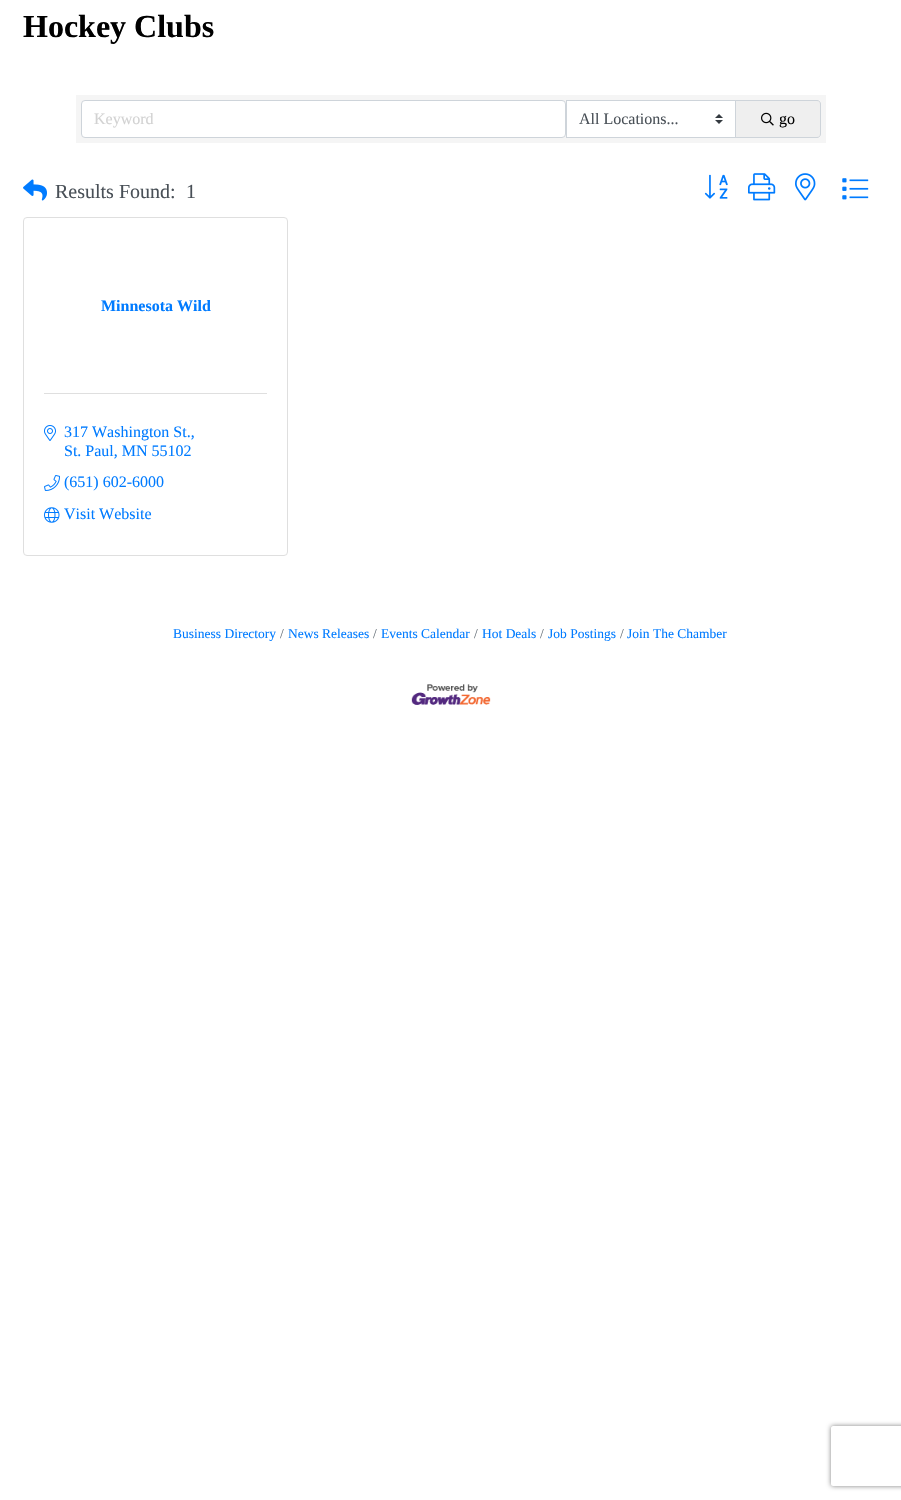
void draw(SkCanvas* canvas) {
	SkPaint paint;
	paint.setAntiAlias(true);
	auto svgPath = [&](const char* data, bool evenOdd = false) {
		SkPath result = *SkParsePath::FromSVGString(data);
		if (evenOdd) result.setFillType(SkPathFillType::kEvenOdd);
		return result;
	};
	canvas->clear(0xffffffff);
	SkFont f1(fontMgr->matchFamilyStyle("Liberation Serif", SkFontStyle::Bold()), 32);
	f1.setSubpixel(true);
	paint.setColor(0xff000000);
	canvas->drawString("Hockey Clubs", 23, 37, f1, paint);
	paint.setColor(0xfff5f5f5);
	canvas->drawRect(SkRect::MakeXYWH(76, 95, 750, 48), paint);
	paint.setColor(0xffffffff);
	canvas->drawRoundRect(SkRect::MakeXYWH(81.5, 100.5, 484, 37), 3.5, 3.5, paint);
	paint.setStroke(true);
	paint.setStrokeWidth(1);
	paint.setColor(0xffced4da);
	canvas->drawRoundRect(SkRect::MakeXYWH(81.5, 100.5, 484, 37), 3.5, 3.5, paint);
	SkFont f2(fontMgr->matchFamilyStyle("Liberation Serif", SkFontStyle::Normal()), 16);
	f2.setSubpixel(true);
	paint.setStroke(false);
	paint.setColor(0xffd2d2d2);
	canvas->drawString("Keyword", 94, 124, f2, paint);
	paint.setColor(0xffffffff);
	canvas->drawRect(SkRect::MakeXYWH(567, 101, 168, 36), paint);
	canvas->drawImageRect(SkImages::DeferredFromEncodedData(SkData::MakeFromFileName("img1.png")), SkRect::MakeXYWH(715, 114, 8, 10), SkSamplingOptions());
	paint.setStroke(true);
	paint.setColor(0xffced4da);
	canvas->drawRect(SkRect::MakeXYWH(566.5, 100.5, 169, 37), paint);
	paint.setStroke(false);
	paint.setColor(0xff495057);
	canvas->drawString("All Locations...", 579, 124, f2, paint);
	paint.setColor(0xffefefef);
	canvas->drawPath(svgPath("M735.5 100.5H817C819 100.5 820.5 102 820.5 104V134C820.5 136 819 137.5 817 137.5H735.5Z"), paint);
	paint.setStroke(true);
	paint.setColor(0xffced4da);
	canvas->drawPath(svgPath("M735.5 100.5H817C819 100.5 820.5 102 820.5 104V134C820.5 136 819 137.5 817 137.5H735.5Z"), paint);
	canvas->drawImageRect(SkImages::DeferredFromEncodedData(SkData::MakeFromFileName("img2.png")), SkRect::MakeXYWH(761, 112, 13, 14), SkSamplingOptions());
	paint.setStroke(false);
	paint.setColor(0xff000000);
	canvas->drawString("go", 779, 124, f2, paint);
	canvas->drawImageRect(SkImages::DeferredFromEncodedData(SkData::MakeFromFileName("img3.png")), SkRect::MakeXYWH(23, 179, 24, 22), SkSamplingOptions());
	SkFont f3(fontMgr->matchFamilyStyle("Liberation Serif", SkFontStyle::Normal()), 20);
	f3.setSubpixel(true);
	paint.setColor(0xff495057);
	canvas->drawString("Results Found:", 55, 198, f3, paint);
	canvas->drawString("1", 186, 198, f3, paint);
	canvas->drawImageRect(SkImages::DeferredFromEncodedData(SkData::MakeFromFileName("img4.png")), SkRect::MakeXYWH(704, 174, 24, 25), SkSamplingOptions());
	canvas->drawImageRect(SkImages::DeferredFromEncodedData(SkData::MakeFromFileName("img5.png")), SkRect::MakeXYWH(748, 173, 28, 28), SkSamplingOptions());
	canvas->drawImageRect(SkImages::DeferredFromEncodedData(SkData::MakeFromFileName("img6.png")), SkRect::MakeXYWH(795, 173, 21, 28), SkSamplingOptions());
	canvas->drawImageRect(SkImages::DeferredFromEncodedData(SkData::MakeFromFileName("img7.png")), SkRect::MakeXYWH(842, 178, 27, 22), SkSamplingOptions());
	paint.setStroke(true);
	paint.setColor(0xffdfdfdf);
	canvas->drawRoundRect(SkRect::MakeXYWH(23.5, 217.5, 264, 338), 3.5, 3.5, paint);
	SkFont f4(fontMgr->matchFamilyStyle("Liberation Serif", SkFontStyle::Bold()), 16);
	f4.setSubpixel(true);
	paint.setStroke(false);
	paint.setColor(0xff007bff);
	canvas->drawString("Minnesota Wild", 101, 311, f4, paint);
	paint.setColor(0xffdfdfdf);
	canvas->drawRect(SkRect::MakeXYWH(44, 393, 223, 1), paint);
	canvas->drawImageRect(SkImages::DeferredFromEncodedData(SkData::MakeFromFileName("img8.png")), SkRect::MakeXYWH(44, 425, 12, 16), SkSamplingOptions());
	paint.setColor(0xff007bff);
	canvas->drawString("317 Washington St.,", 64, 437, f2, paint);
	canvas->drawString("St. Paul, MN 55102", 64, 456, f2, paint);
	canvas->drawImageRect(SkImages::DeferredFromEncodedData(SkData::MakeFromFileName("img9.png")), SkRect::MakeXYWH(44, 475, 16, 16), SkSamplingOptions());
	canvas->drawString("(651) 602-6000", 64, 487, f2, paint);
	canvas->drawImageRect(SkImages::DeferredFromEncodedData(SkData::MakeFromFileName("img10.png")), SkRect::MakeXYWH(44, 507, 16, 16), SkSamplingOptions());
	canvas->drawString("Visit Website", 64, 519, f2, paint);
	SkFont f5(fontMgr->matchFamilyStyle("Liberation Serif", SkFontStyle::Normal()), 13.5);
	f5.setSubpixel(true);
	canvas->drawString("Business Directory", 173, 638, f5, paint);
	paint.setColor(0xff6c757d);
	canvas->drawString("/", 280, 638, f5, paint);
	paint.setColor(0xff007bff);
	canvas->drawString("News Releases", 288, 638, f5, paint);
	paint.setColor(0xff6c757d);
	canvas->drawString("/", 373, 638, f5, paint);
	paint.setColor(0xff007bff);
	canvas->drawString("Events Calendar", 381, 638, f5, paint);
	paint.setColor(0xff6c757d);
	canvas->drawString("/", 474, 638, f5, paint);
	paint.setColor(0xff007bff);
	canvas->drawString("Hot Deals", 482, 638, f5, paint);
	paint.setColor(0xff6c757d);
	canvas->drawString("/", 540, 638, f5, paint);
	paint.setColor(0xff007bff);
	canvas->drawString("Job Postings", 548, 638, f5, paint);
	paint.setColor(0xff6c757d);
	canvas->drawString("/", 620, 638, f5, paint);
	paint.setColor(0xff007bff);
	canvas->drawString("Join The Chamber", 627, 638, f5, paint);
	canvas->drawImageRect(SkImages::DeferredFromEncodedData(SkData::MakeFromFileName("img11.png")), SkRect::MakeXYWH(411, 684, 80, 21), SkSamplingOptions());
	canvas->save();
	canvas->clipPath(svgPath("M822 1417H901V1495H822ZM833 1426H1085C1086 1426 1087 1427 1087 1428V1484C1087 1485 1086 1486 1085 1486H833C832 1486 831 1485 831 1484V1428C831 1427 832 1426 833 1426Z", true), true);
	paint.setColor(0xff808080);
	paint.setMaskFilter(SkMaskFilter::MakeBlur(kNormal_SkBlurStyle, 2.5));
	canvas->drawRoundRect(SkRect::MakeXYWH(831, 1426, 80, 60), 2, 2, paint);
	paint.setMaskFilter(nullptr);
	canvas->restore();
}
